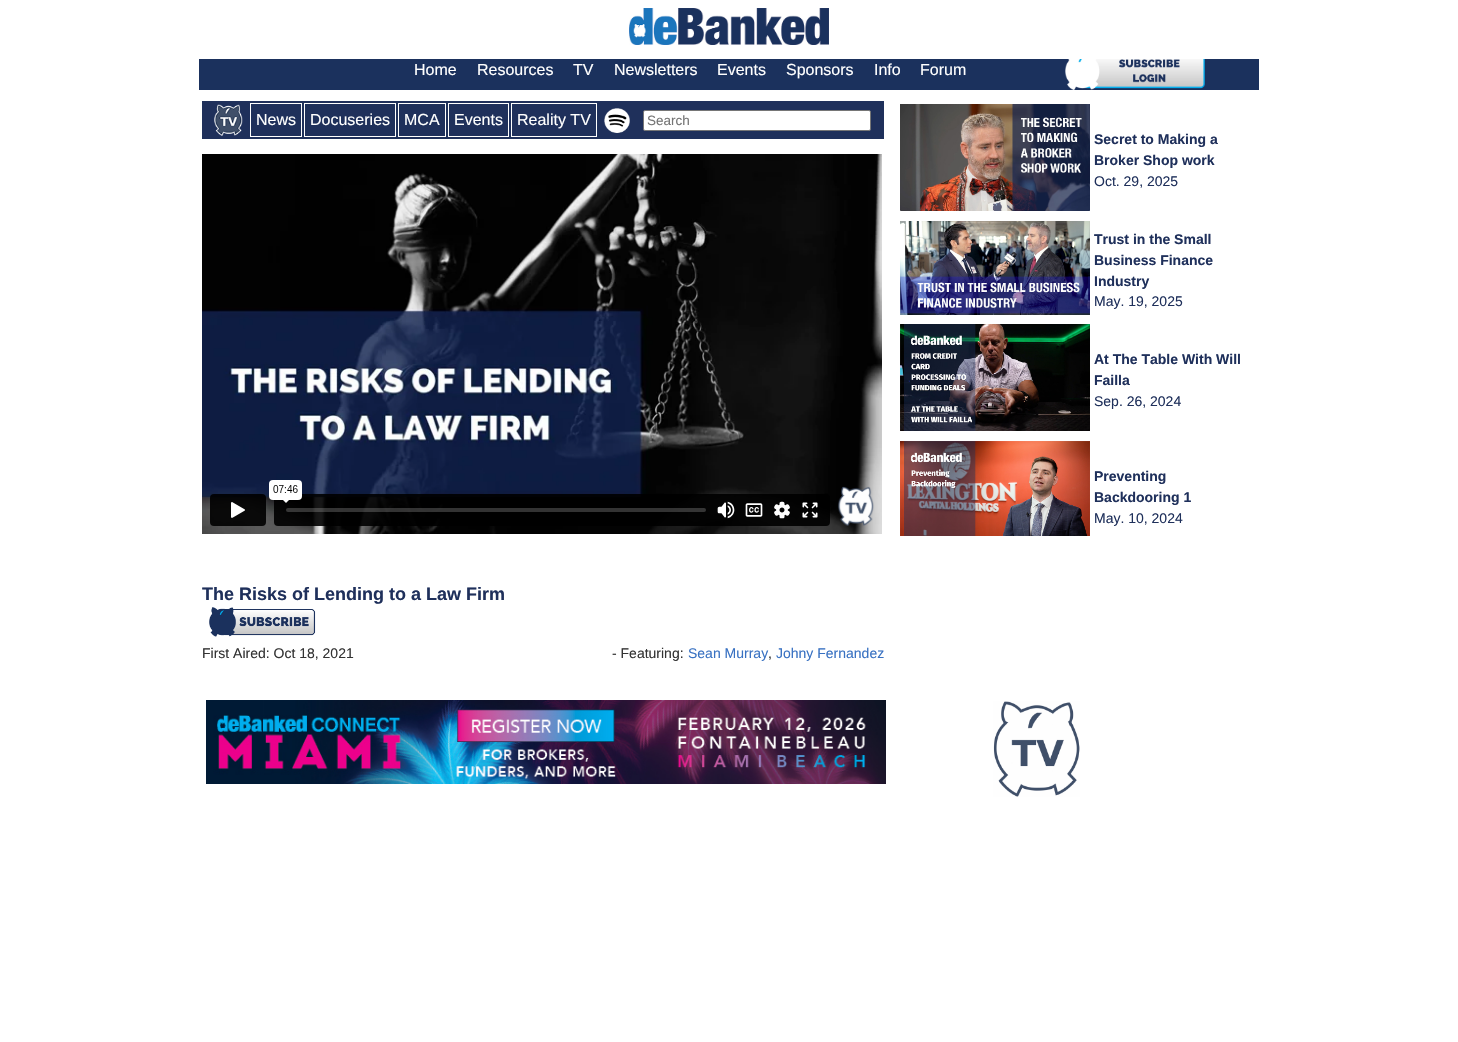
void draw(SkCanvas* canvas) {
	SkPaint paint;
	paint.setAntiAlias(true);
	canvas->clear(0xffffffff);
	canvas->drawImageRect(SkImages::DeferredFromEncodedData(SkData::MakeFromFileName("img1.png")), SkRect::MakeXYWH(629, 8, 200, 37), SkSamplingOptions());
	paint.setColor(0xff1b315d);
	canvas->drawRect(SkRect::MakeXYWH(199, 59, 1060, 31), paint);
	SkFont f1(fontMgr->matchFamilyStyle("Liberation Sans", SkFontStyle::Normal()), 16);
	f1.setSubpixel(true);
	paint.setColor(0xffffffff);
	canvas->drawString("Home", 414, 75, f1, paint);
	canvas->drawString("Resources", 477, 75, f1, paint);
	canvas->drawString("TV", 573, 75, f1, paint);
	canvas->drawString("Newsletters", 614, 75, f1, paint);
	canvas->drawString("Events", 717, 75, f1, paint);
	canvas->drawString("Sponsors", 786, 75, f1, paint);
	canvas->drawString("Info", 874, 75, f1, paint);
	canvas->drawString("Forum", 920, 75, f1, paint);
	canvas->drawImageRect(SkImages::DeferredFromEncodedData(SkData::MakeFromFileName("img2.png")), SkRect::MakeXYWH(1065, 59, 140, 31), SkSamplingOptions());
	paint.setColor(0xff1f305b);
	canvas->drawRect(SkRect::MakeXYWH(202, 101, 682, 38), paint);
	canvas->drawImageRect(SkImages::DeferredFromEncodedData(SkData::MakeFromFileName("img3.png")), SkRect::MakeXYWH(214, 104, 29, 32), SkSamplingOptions());
	paint.setStroke(true);
	paint.setStrokeWidth(1);
	paint.setColor(0xffffffff);
	canvas->drawRect(SkRect::MakeXYWH(250.5, 103.5, 51, 33), paint);
	paint.setStroke(false);
	canvas->drawString("News", 256, 125, f1, paint);
	paint.setStroke(true);
	canvas->drawRect(SkRect::MakeXYWH(304.5, 103.5, 91, 33), paint);
	paint.setStroke(false);
	canvas->drawString("Docuseries", 310, 125, f1, paint);
	paint.setStroke(true);
	canvas->drawRect(SkRect::MakeXYWH(398.5, 103.5, 47, 33), paint);
	paint.setStroke(false);
	canvas->drawString("MCA", 404, 125, f1, paint);
	paint.setStroke(true);
	canvas->drawRect(SkRect::MakeXYWH(448.5, 103.5, 60, 33), paint);
	paint.setStroke(false);
	canvas->drawString("Events", 454, 125, f1, paint);
	paint.setStroke(true);
	canvas->drawRect(SkRect::MakeXYWH(511.5, 103.5, 85, 33), paint);
	paint.setStroke(false);
	canvas->drawString("Reality TV", 517, 125, f1, paint);
	canvas->drawImageRect(SkImages::DeferredFromEncodedData(SkData::MakeFromFileName("img4.png")), SkRect::MakeXYWH(604, 108, 26, 25), SkSamplingOptions());
	canvas->drawRoundRect(SkRect::MakeXYWH(643.5, 110.5, 227, 20), 1.5, 1.5, paint);
	paint.setStroke(true);
	paint.setColor(0xff767676);
	canvas->drawRoundRect(SkRect::MakeXYWH(643.5, 110.5, 227, 20), 1.5, 1.5, paint);
	SkFont f2(fontMgr->matchFamilyStyle("Liberation Sans", SkFontStyle::Normal()), 13.5);
	f2.setSubpixel(true);
	paint.setStroke(false);
	paint.setColor(0xff757575);
	canvas->drawString("Search", 647, 125, f2, paint);
	canvas->drawImageRect(SkImages::DeferredFromEncodedData(SkData::MakeFromFileName("img5.png")), SkRect::MakeXYWH(202, 154, 680, 380), SkSamplingOptions());
	SkFont f3(fontMgr->matchFamilyStyle("Liberation Sans", SkFontStyle::Bold()), 18);
	f3.setSubpixel(true);
	paint.setColor(0xff1f305b);
	canvas->drawString("The Risks of Lending to a Law Firm", 202, 600, f3, paint);
	canvas->drawImageRect(SkImages::DeferredFromEncodedData(SkData::MakeFromFileName("img6.png")), SkRect::MakeXYWH(209, 607, 107, 30), SkSamplingOptions());
	SkFont f4(fontMgr->matchFamilyStyle("Liberation Sans", SkFontStyle::Normal()), 14);
	f4.setSubpixel(true);
	paint.setColor(0xff333333);
	canvas->drawString("First Aired: Oct 18, 2021", 202, 658, f4, paint);
	canvas->drawString("- Featuring:", 612, 658, f4, paint);
	paint.setColor(0xff3871c2);
	canvas->drawString("Sean Murray", 688, 658, f4, paint);
	paint.setColor(0xff333333);
	canvas->drawString(",", 768, 658, f4, paint);
	paint.setColor(0xff3871c2);
	canvas->drawString("Johny Fernandez", 776, 658, f4, paint);
	canvas->drawImageRect(SkImages::DeferredFromEncodedData(SkData::MakeFromFileName("img7.png")), SkRect::MakeXYWH(900, 104, 190, 107), SkSamplingOptions());
	SkFont f5(fontMgr->matchFamilyStyle("Liberation Sans", SkFontStyle::Bold()), 14);
	f5.setSubpixel(true);
	paint.setColor(0xff1f305b);
	canvas->drawString("Secret to Making a", 1094, 144, f5, paint);
	canvas->drawString("Broker Shop work", 1094, 165, f5, paint);
	canvas->drawString("Oct. 29, 2025", 1094, 186, f4, paint);
	canvas->drawImageRect(SkImages::DeferredFromEncodedData(SkData::MakeFromFileName("img8.png")), SkRect::MakeXYWH(900, 221, 190, 94), SkSamplingOptions());
	canvas->drawString("Trust in the Small", 1094, 244, f5, paint);
	canvas->drawString("Business Finance", 1094, 265, f5, paint);
	canvas->drawString("Industry", 1094, 286, f5, paint);
	canvas->drawString("May. 19, 2025", 1094, 306, f4, paint);
	canvas->drawImageRect(SkImages::DeferredFromEncodedData(SkData::MakeFromFileName("img9.png")), SkRect::MakeXYWH(900, 324, 190, 107), SkSamplingOptions());
	canvas->drawString("At The Table With Will", 1094, 364, f5, paint);
	canvas->drawString("Failla", 1094, 385, f5, paint);
	canvas->drawString("Sep. 26, 2024", 1094, 406, f4, paint);
	canvas->drawImageRect(SkImages::DeferredFromEncodedData(SkData::MakeFromFileName("img10.png")), SkRect::MakeXYWH(900, 441, 190, 95), SkSamplingOptions());
	canvas->drawString("Preventing", 1094, 481, f5, paint);
	canvas->drawString("Backdooring 1", 1094, 502, f5, paint);
	canvas->drawString("May. 10, 2024", 1094, 523, f4, paint);
	canvas->drawImageRect(SkImages::DeferredFromEncodedData(SkData::MakeFromFileName("img11.png")), SkRect::MakeXYWH(206, 700, 680, 84), SkSamplingOptions());
	canvas->drawImageRect(SkImages::DeferredFromEncodedData(SkData::MakeFromFileName("img12.png")), SkRect::MakeXYWH(993, 701, 87, 96), SkSamplingOptions());
}
